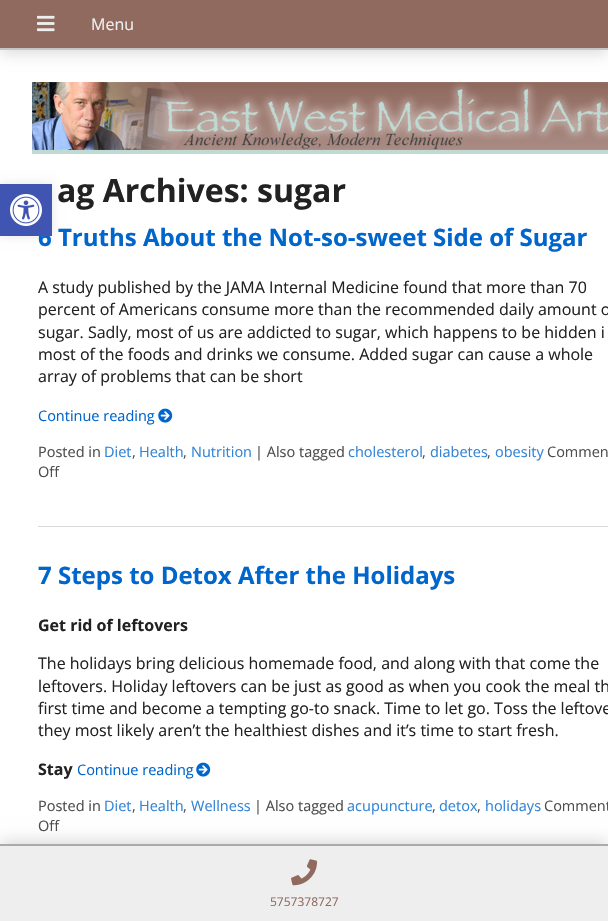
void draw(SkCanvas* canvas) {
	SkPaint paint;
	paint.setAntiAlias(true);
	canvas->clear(0xffffffff);
	paint.setColor(0x1a000000);
	paint.setMaskFilter(SkMaskFilter::MakeBlur(kNormal_SkBlurStyle, 5));
	canvas->drawRect(SkRect::MakeXYWH(0, 184, 52, 52), paint);
	paint.setMaskFilter(nullptr);
	SkFont f1(fontMgr->matchFamilyStyle("Open Sans", SkFontStyle::Bold()), 24);
	f1.setSubpixel(true);
	paint.setColor(0xff0066cc);
	canvas->drawString("6 Truths About the Not-so-sweet Side of Sugar", 38, 246, f1, paint);
	paint.setColor(0xff4054b2);
	canvas->drawRect(SkRect::MakeXYWH(0, 184, 52, 52), paint);
	canvas->drawImageRect(SkImages::DeferredFromEncodedData(SkData::MakeFromFileName("img1.png")), SkRect::MakeXYWH(10, 194, 32, 32), SkSamplingOptions());
	paint.setColor(0x26000000);
	paint.setMaskFilter(SkMaskFilter::MakeBlur(kNormal_SkBlurStyle, 8));
	canvas->drawRect(SkRect::MakeXYWH(0, 3, 608, 50), paint);
	paint.setMaskFilter(nullptr);
	paint.setColor(0xff906a5f);
	canvas->drawRect(SkRect::MakeXYWH(0, 0, 608, 48), paint);
	paint.setColor(0xffc6c6c6);
	canvas->drawRect(SkRect::MakeXYWH(0, 48, 608, 2), paint);
	canvas->drawImageRect(SkImages::DeferredFromEncodedData(SkData::MakeFromFileName("img2.png")), SkRect::MakeXYWH(37, 15, 18, 17), SkSamplingOptions());
	SkFont f2(fontMgr->matchFamilyStyle("Open Sans", SkFontStyle::Normal()), 16);
	f2.setSubpixel(true);
	paint.setColor(0xffeeeeee);
	canvas->drawString("Menu", 91, 30, f2, paint);
	canvas->drawImageRect(SkImages::DeferredFromEncodedData(SkData::MakeFromFileName("img3.png")), SkRect::MakeXYWH(32, 82, 576, 68), SkSamplingOptions());
	paint.setColor(0xffbfdad3);
	canvas->drawRect(SkRect::MakeXYWH(32, 150, 576, 4), paint);
	SkFont f3(fontMgr->matchFamilyStyle("Open Sans", SkFontStyle::Bold()), 32);
	f3.setSubpixel(true);
	paint.setColor(0xff222222);
	canvas->drawString("ag Archives: sugar", 57, 202, f3, paint);
	paint.setColor(0xffd9d9d9);
	canvas->drawRect(SkRect::MakeXYWH(38, 526, 570, 1), paint);
	paint.setColor(0xff222222);
	canvas->drawString("A study published by the JAMA Internal Medicine found that more than 70", 38, 293, f2, paint);
	canvas->drawString("percent of Americans consume more than the recommended daily amount o", 38, 315, f2, paint);
	canvas->drawString("sugar. Sadly, most of us are addicted to sugar, which happens to be hidden i", 38, 338, f2, paint);
	canvas->drawString("most of the foods and drinks we consume. Added sugar can cause a whole", 38, 360, f2, paint);
	canvas->drawString("array of problems that can be short", 38, 382, f2, paint);
	SkFont f4(fontMgr->matchFamilyStyle("Open Sans", SkFontStyle::Normal()), 14.5);
	f4.setSubpixel(true);
	paint.setColor(0xff0066cc);
	canvas->drawString("Continue reading", 38, 421, f4, paint);
	canvas->drawImageRect(SkImages::DeferredFromEncodedData(SkData::MakeFromFileName("img4.png")), SkRect::MakeXYWH(158, 408, 15, 15), SkSamplingOptions());
	paint.setColor(0xff4e4e4e);
	canvas->drawString("Posted in", 38, 457, f4, paint);
	paint.setColor(0xff3385d6);
	canvas->drawString("Diet", 104, 457, f4, paint);
	paint.setColor(0xff4e4e4e);
	canvas->drawString(",", 132, 457, f4, paint);
	paint.setColor(0xff3385d6);
	canvas->drawString("Health", 139, 457, f4, paint);
	paint.setColor(0xff4e4e4e);
	canvas->drawString(",", 183, 457, f4, paint);
	paint.setColor(0xff3385d6);
	canvas->drawString("Nutrition", 191, 457, f4, paint);
	paint.setColor(0xff4e4e4e);
	canvas->drawString("| Also tagged", 255, 457, f4, paint);
	paint.setColor(0xff3385d6);
	canvas->drawString("cholesterol", 348, 457, f4, paint);
	paint.setColor(0xff4e4e4e);
	canvas->drawString(",", 422, 457, f4, paint);
	paint.setColor(0xff3385d6);
	canvas->drawString("diabetes", 430, 457, f4, paint);
	paint.setColor(0xff4e4e4e);
	canvas->drawString(",", 487, 457, f4, paint);
	paint.setColor(0xff3385d6);
	canvas->drawString("obesity", 495, 457, f4, paint);
	paint.setColor(0xff4e4e4e);
	canvas->drawString("Commen", 547, 457, f4, paint);
	canvas->drawString("Off", 38, 477, f4, paint);
	paint.setColor(0xff0066cc);
	canvas->drawString("7 Steps to Detox After the Holidays", 38, 584, f1, paint);
	SkFont f5(fontMgr->matchFamilyStyle("Open Sans", SkFontStyle::Bold()), 16);
	f5.setSubpixel(true);
	paint.setColor(0xff222222);
	canvas->drawString("Get rid of leftovers", 38, 631, f5, paint);
	canvas->drawString("The holidays bring delicious homemade food, and along with that come the", 38, 669, f2, paint);
	canvas->drawString("leftovers. Holiday leftovers can be just as good as when you cook the meal th", 38, 692, f2, paint);
	canvas->drawString("first time and become a tempting go-to snack. Time to let go. Toss the leftove", 38, 714, f2, paint);
	canvas->drawString("they most likely aren’t the healthiest dishes and it’s time to start fresh.", 38, 736, f2, paint);
	canvas->drawString("Stay", 38, 775, f5, paint);
	paint.setColor(0xff0066cc);
	canvas->drawString("Continue reading", 77, 775, f4, paint);
	canvas->drawImageRect(SkImages::DeferredFromEncodedData(SkData::MakeFromFileName("img4.png")), SkRect::MakeXYWH(196, 762, 15, 15), SkSamplingOptions());
	paint.setColor(0xff4e4e4e);
	canvas->drawString("Posted in", 38, 811, f4, paint);
	paint.setColor(0xff3385d6);
	canvas->drawString("Diet", 104, 811, f4, paint);
	paint.setColor(0xff4e4e4e);
	canvas->drawString(",", 132, 811, f4, paint);
	paint.setColor(0xff3385d6);
	canvas->drawString("Health", 139, 811, f4, paint);
	paint.setColor(0xff4e4e4e);
	canvas->drawString(",", 183, 811, f4, paint);
	paint.setColor(0xff3385d6);
	canvas->drawString("Wellness", 191, 811, f4, paint);
	paint.setColor(0xff4e4e4e);
	canvas->drawString("| Also tagged", 254, 811, f4, paint);
	paint.setColor(0xff3385d6);
	canvas->drawString("acupuncture", 347, 811, f4, paint);
	paint.setColor(0xff4e4e4e);
	canvas->drawString(",", 432, 811, f4, paint);
	paint.setColor(0xff3385d6);
	canvas->drawString("detox", 439, 811, f4, paint);
	paint.setColor(0xff4e4e4e);
	canvas->drawString(",", 477, 811, f4, paint);
	paint.setColor(0xff3385d6);
	canvas->drawString("holidays", 485, 811, f4, paint);
	paint.setColor(0xff4e4e4e);
	canvas->drawString("Comment", 544, 811, f4, paint);
	canvas->drawString("Off", 38, 831, f4, paint);
	paint.setColor(0x26000000);
	paint.setMaskFilter(SkMaskFilter::MakeBlur(kNormal_SkBlurStyle, 8));
	canvas->drawRect(SkRect::MakeXYWH(0, 841, 608, 77), paint);
	paint.setMaskFilter(nullptr);
	paint.setColor(0xffeeeeee);
	canvas->drawRect(SkRect::MakeXYWH(0, 846, 608, 75), paint);
	paint.setColor(0xffaaaaaa);
	canvas->drawRect(SkRect::MakeXYWH(0, 844, 608, 2), paint);
	canvas->drawImageRect(SkImages::DeferredFromEncodedData(SkData::MakeFromFileName("img5.png")), SkRect::MakeXYWH(291, 859, 26, 27), SkSamplingOptions());
	SkFont f6(fontMgr->matchFamilyStyle("Open Sans", SkFontStyle::Normal()), 12);
	f6.setSubpixel(true);
	paint.setColor(0xff906a5f);
	canvas->drawString("5757378727", 270, 906, f6, paint);
}
